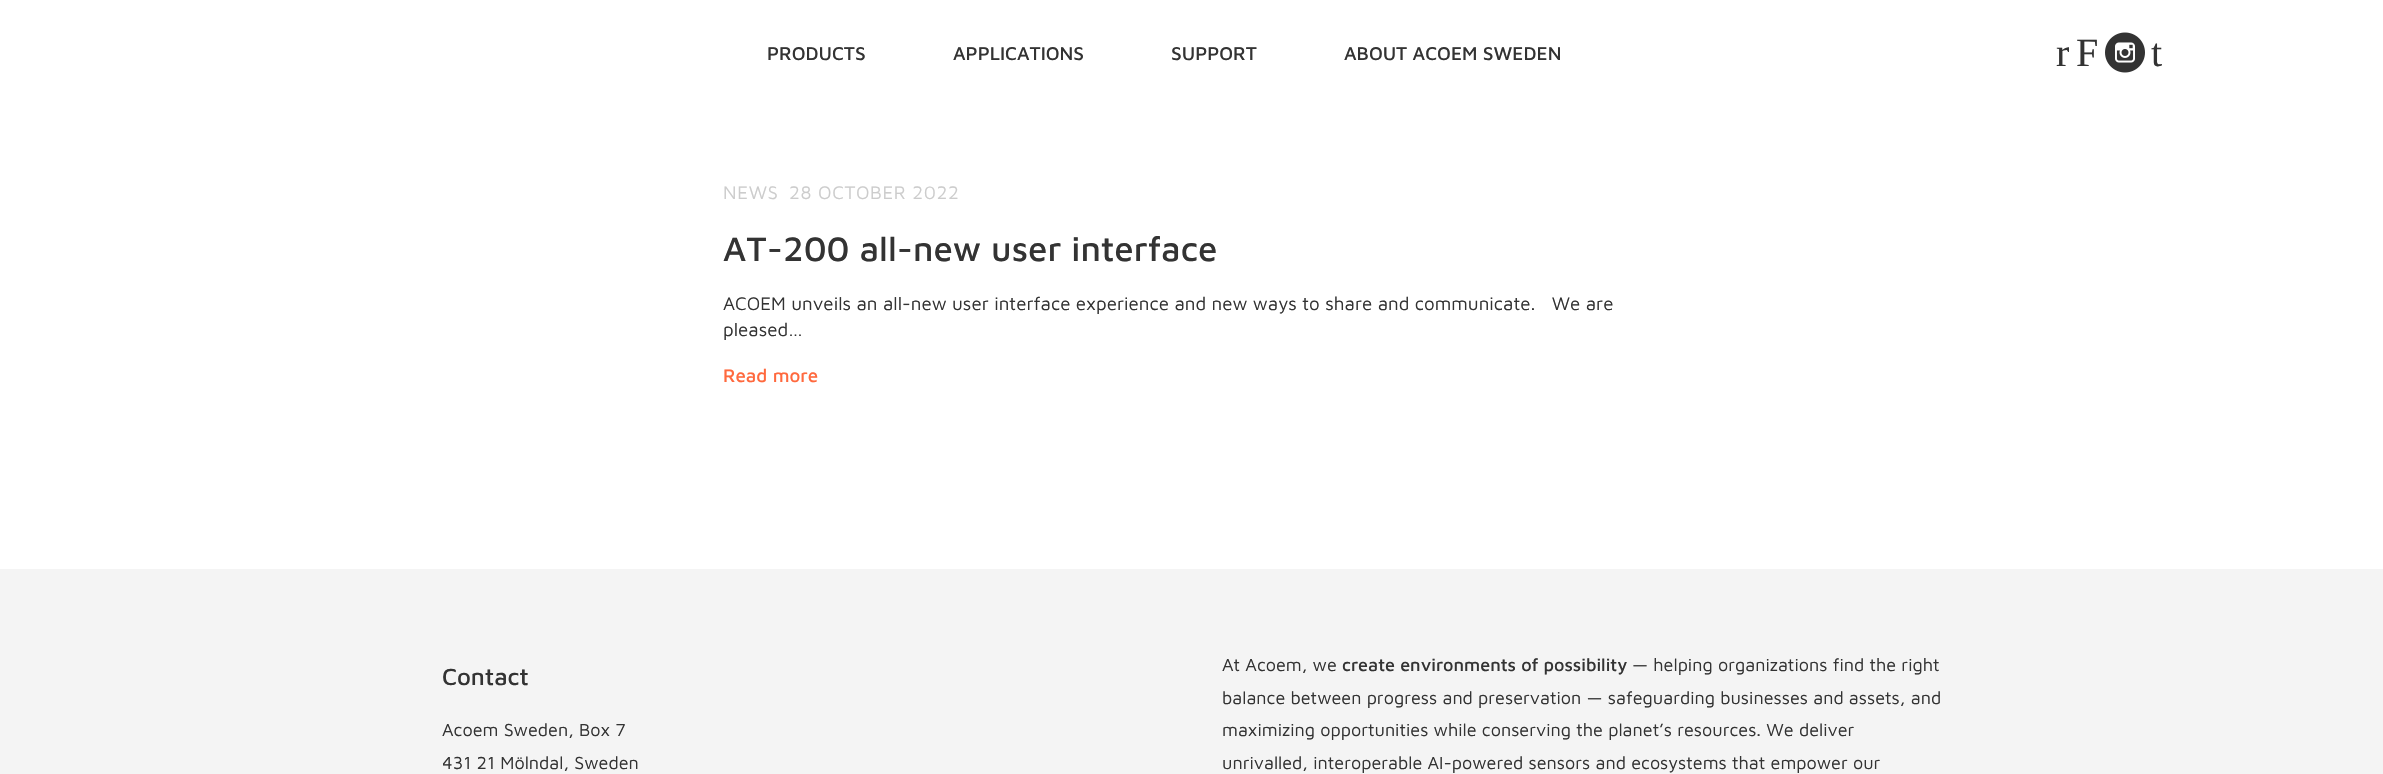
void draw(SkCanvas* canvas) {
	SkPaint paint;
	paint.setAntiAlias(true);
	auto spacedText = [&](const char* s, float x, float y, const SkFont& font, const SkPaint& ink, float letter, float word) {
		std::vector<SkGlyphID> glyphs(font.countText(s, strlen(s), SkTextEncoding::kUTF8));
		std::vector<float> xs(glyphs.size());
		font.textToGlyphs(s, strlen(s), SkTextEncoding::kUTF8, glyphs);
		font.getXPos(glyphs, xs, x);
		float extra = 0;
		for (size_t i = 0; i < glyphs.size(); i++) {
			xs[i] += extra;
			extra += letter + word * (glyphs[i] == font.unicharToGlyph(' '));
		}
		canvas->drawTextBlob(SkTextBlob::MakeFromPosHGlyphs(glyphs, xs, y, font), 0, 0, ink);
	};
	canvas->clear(0xffffffff);
	SkFont f1(fontMgr->matchFamilyStyle("Maven Pro", SkFontStyle(500, SkFontStyle::kNormal_Width, SkFontStyle::kUpright_Slant)), 19);
	f1.setSubpixel(true);
	paint.setColor(0xff333333);
	canvas->drawString("PRODUCTS", 767, 60, f1, paint);
	canvas->drawString("APPLICATIONS", 953, 60, f1, paint);
	canvas->drawString("SUPPORT", 1171, 60, f1, paint);
	canvas->drawString("ABOUT ACOEM SWEDEN", 1344, 60, f1, paint);
	SkFont f2(fontMgr->matchFamilyStyle("Liberation Serif", SkFontStyle::Normal()), 40);
	f2.setSubpixel(true);
	canvas->drawString("r", 2056, 66, f2, paint);
	canvas->drawString("F", 2076, 66, f2, paint);
	canvas->drawImageRect(SkImages::DeferredFromEncodedData(SkData::MakeFromFileName("img1.png")), SkRect::MakeXYWH(2105, 32, 40, 41), SkSamplingOptions());
	canvas->drawString("t", 2151, 66, f2, paint);
	SkFont f3(fontMgr->matchFamilyStyle("Maven Pro", SkFontStyle::Normal()), 18.75);
	f3.setSubpixel(true);
	paint.setColor(0xffcccccc);
	spacedText("NEWS", 723, 199, f3, paint, 0.6, 0);
	spacedText("28 OCTOBER 2022", 789, 199, f3, paint, 0.6, 0);
	SkFont f4(fontMgr->matchFamilyStyle("Maven Pro", SkFontStyle(500, SkFontStyle::kNormal_Width, SkFontStyle::kUpright_Slant)), 35);
	f4.setSubpixel(true);
	paint.setColor(0xff333333);
	canvas->drawString("AT-200 all-new user interface", 723, 261, f4, paint);
	canvas->drawString("ACOEM unveils an all-new user interface experience and new ways to share and communicate.   We are", 723, 310, f3, paint);
	canvas->drawString("pleased…", 723, 336, f3, paint);
	SkFont f5(fontMgr->matchFamilyStyle("Maven Pro", SkFontStyle(500, SkFontStyle::kNormal_Width, SkFontStyle::kUpright_Slant)), 18.75);
	f5.setSubpixel(true);
	paint.setColor(0xffff693e);
	canvas->drawString("Read more", 723, 382, f5, paint);
	paint.setColor(0xfff4f4f4);
	canvas->drawRect(SkRect::MakeXYWH(0, 569, 2383, 205), paint);
	SkFont f6(fontMgr->matchFamilyStyle("Maven Pro", SkFontStyle(500, SkFontStyle::kNormal_Width, SkFontStyle::kUpright_Slant)), 24);
	f6.setSubpixel(true);
	paint.setColor(0xff333333);
	canvas->drawString("Contact", 442, 685, f6, paint);
	SkFont f7(fontMgr->matchFamilyStyle("Maven Pro", SkFontStyle::Normal()), 18);
	f7.setSubpixel(true);
	canvas->drawString("Acoem Sweden, Box 7", 442, 736, f7, paint);
	canvas->save();
	canvas->clipRect(SkRect::MakeXYWH(443, 649, 1500, 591));
	canvas->drawString("431 21 Mölndal, Sweden", 442, 769, f7, paint);
	canvas->restore();
	canvas->drawString("At Acoem, we", 1222, 671, f7, paint);
	SkFont f8(fontMgr->matchFamilyStyle("Maven Pro", SkFontStyle(500, SkFontStyle::kNormal_Width, SkFontStyle::kUpright_Slant)), 18);
	f8.setSubpixel(true);
	canvas->drawString("create environments of possibility", 1342, 671, f8, paint);
	canvas->drawString("— helping organizations find the right", 1632, 671, f7, paint);
	canvas->drawString("balance between progress and preservation — safeguarding businesses and assets, and", 1222, 704, f7, paint);
	canvas->drawString("maximizing opportunities while conserving the planet’s resources. We deliver", 1222, 736, f7, paint);
	canvas->drawString("unrivalled, interoperable AI-powered sensors and ecosystems that empower our", 1222, 769, f7, paint);
}
